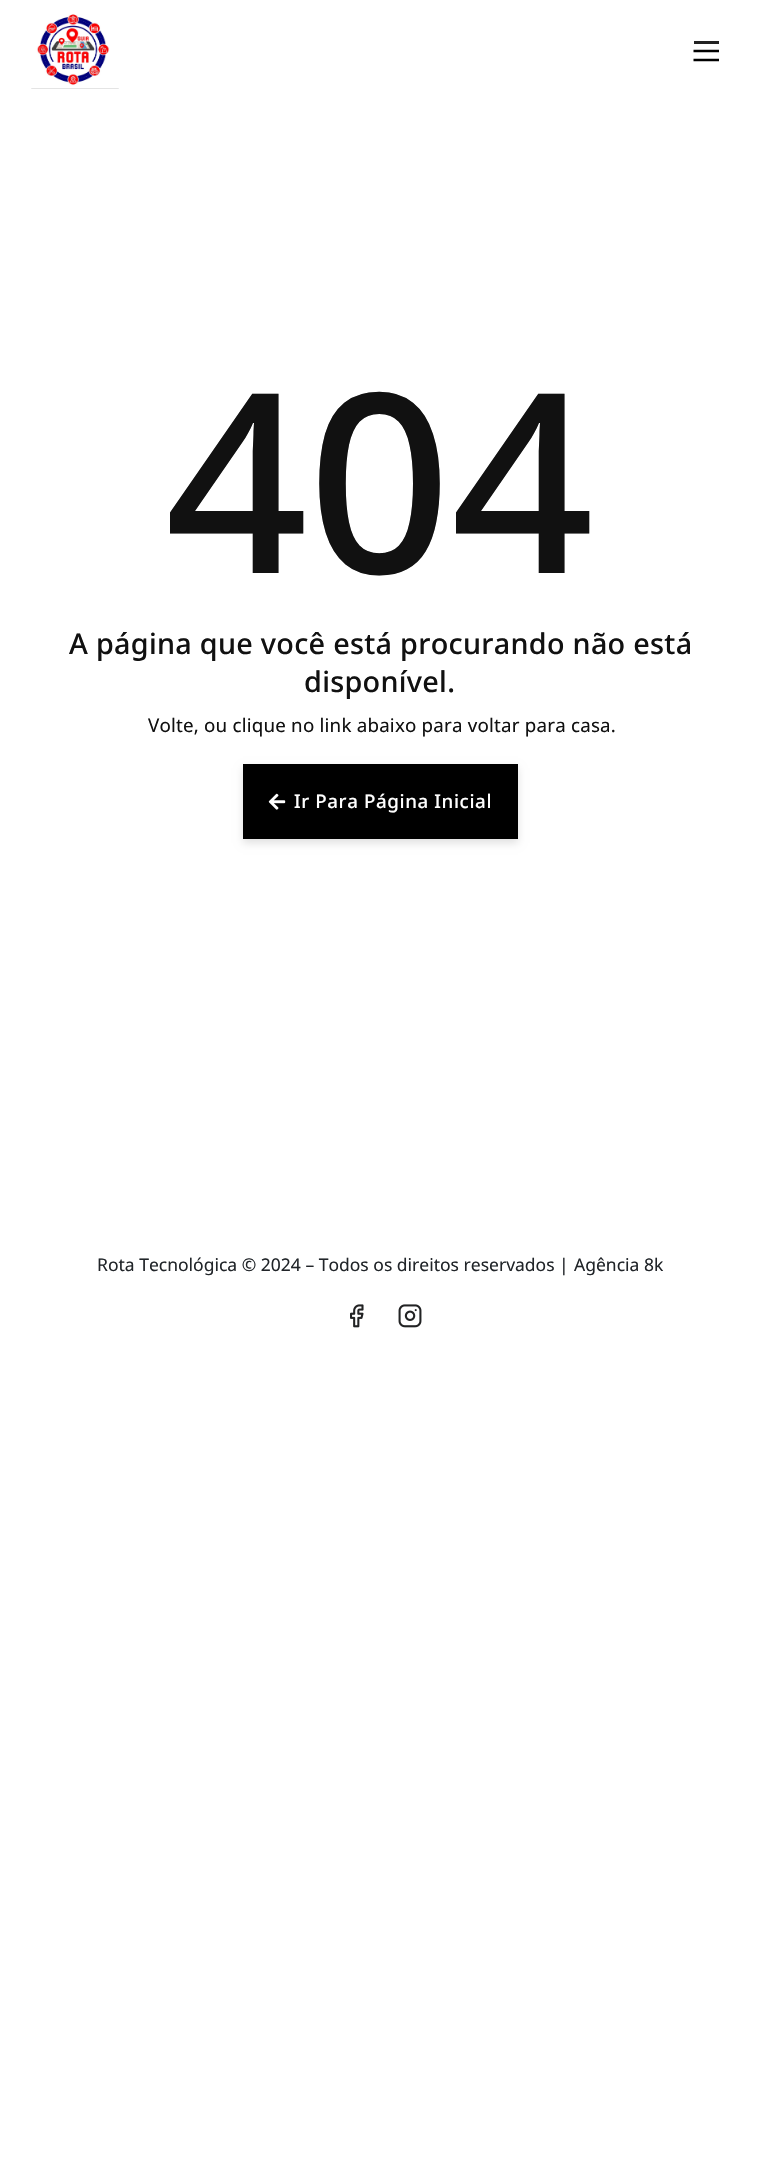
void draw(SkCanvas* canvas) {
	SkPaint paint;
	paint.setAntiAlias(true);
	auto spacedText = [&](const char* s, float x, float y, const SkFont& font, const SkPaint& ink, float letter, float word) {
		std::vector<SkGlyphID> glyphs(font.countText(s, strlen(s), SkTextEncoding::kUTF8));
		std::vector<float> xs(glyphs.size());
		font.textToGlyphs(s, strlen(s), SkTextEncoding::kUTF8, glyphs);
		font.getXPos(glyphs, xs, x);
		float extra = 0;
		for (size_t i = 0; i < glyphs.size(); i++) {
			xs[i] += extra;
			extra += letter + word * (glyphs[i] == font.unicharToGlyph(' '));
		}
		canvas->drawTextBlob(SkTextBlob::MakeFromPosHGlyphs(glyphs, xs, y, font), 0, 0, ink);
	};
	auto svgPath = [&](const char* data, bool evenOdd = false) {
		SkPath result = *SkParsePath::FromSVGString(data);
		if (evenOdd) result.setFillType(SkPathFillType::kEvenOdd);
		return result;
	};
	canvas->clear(0xffffffff);
	canvas->drawImageRect(SkImages::DeferredFromEncodedData(SkData::MakeFromFileName("img1.png")), SkRect::MakeXYWH(31, 14, 88, 75), SkSamplingOptions());
	paint.setColor(0xff222222);
	canvas->drawRect(SkRect::MakeXYWH(694, 41, 25, 3), paint);
	paint.setStroke(true);
	paint.setStrokeWidth(2.6);
	paint.setColor(0xff000000);
	canvas->drawPath(svgPath("M693.5 51H719M693.5 60H719"), paint);
	SkFont f1(fontMgr->matchFamilyStyle("Noto Sans", SkFontStyle(500, SkFontStyle::kNormal_Width, SkFontStyle::kUpright_Slant)), 250);
	f1.setSubpixel(true);
	paint.setStroke(false);
	paint.setColor(0xff111111);
	canvas->drawString("404", 165, 573, f1, paint);
	SkFont f2(fontMgr->matchFamilyStyle("Noto Sans", SkFontStyle(500, SkFontStyle::kNormal_Width, SkFontStyle::kUpright_Slant)), 28.75);
	f2.setSubpixel(true);
	spacedText("A página que você está procurando não está", 69, 654, f2, paint, 0.3, 0);
	spacedText("disponível.", 304, 692, f2, paint, 0.3, 0);
	SkFont f3(fontMgr->matchFamilyStyle("Noto Sans", SkFontStyle::Normal()), 18.75);
	f3.setSubpixel(true);
	spacedText("Volte, ou clique no link abaixo para voltar para casa.", 148, 732, f3, paint, 0.2, 0);
	paint.setColor(0x1f000000);
	paint.setMaskFilter(SkMaskFilter::MakeBlur(kNormal_SkBlurStyle, 4));
	canvas->drawRect(SkRect::MakeXYWH(243, 768, 275, 75), paint);
	paint.setMaskFilter(nullptr);
	paint.setColor(0xff000000);
	canvas->drawRect(SkRect::MakeXYWH(243, 764, 275, 75), paint);
	canvas->drawImageRect(SkImages::DeferredFromEncodedData(SkData::MakeFromFileName("img2.png")), SkRect::MakeXYWH(268, 793, 18, 17), SkSamplingOptions());
	SkFont f4(fontMgr->matchFamilyStyle("Noto Sans", SkFontStyle(500, SkFontStyle::kNormal_Width, SkFontStyle::kUpright_Slant)), 18.75);
	f4.setSubpixel(true);
	paint.setColor(0xffffffff);
	spacedText("Ir Para Página Inicial", 294, 808, f4, paint, 0.6, 0);
	SkFont f5(fontMgr->matchFamilyStyle("Noto Sans", SkFontStyle::Normal()), 17.5);
	f5.setSubpixel(true);
	paint.setColor(0xff212529);
	canvas->drawString("Rota Tecnológica © 2024 – Todos os direitos reservados |", 97, 1271, f5, paint);
	canvas->drawString("Agência 8k", 574, 1271, f5, paint);
	canvas->drawImageRect(SkImages::DeferredFromEncodedData(SkData::MakeFromFileName("img3.png")), SkRect::MakeXYWH(350, 1304, 14, 24), SkSamplingOptions());
	canvas->drawImageRect(SkImages::DeferredFromEncodedData(SkData::MakeFromFileName("img4.png")), SkRect::MakeXYWH(398, 1304, 24, 24), SkSamplingOptions());
}
